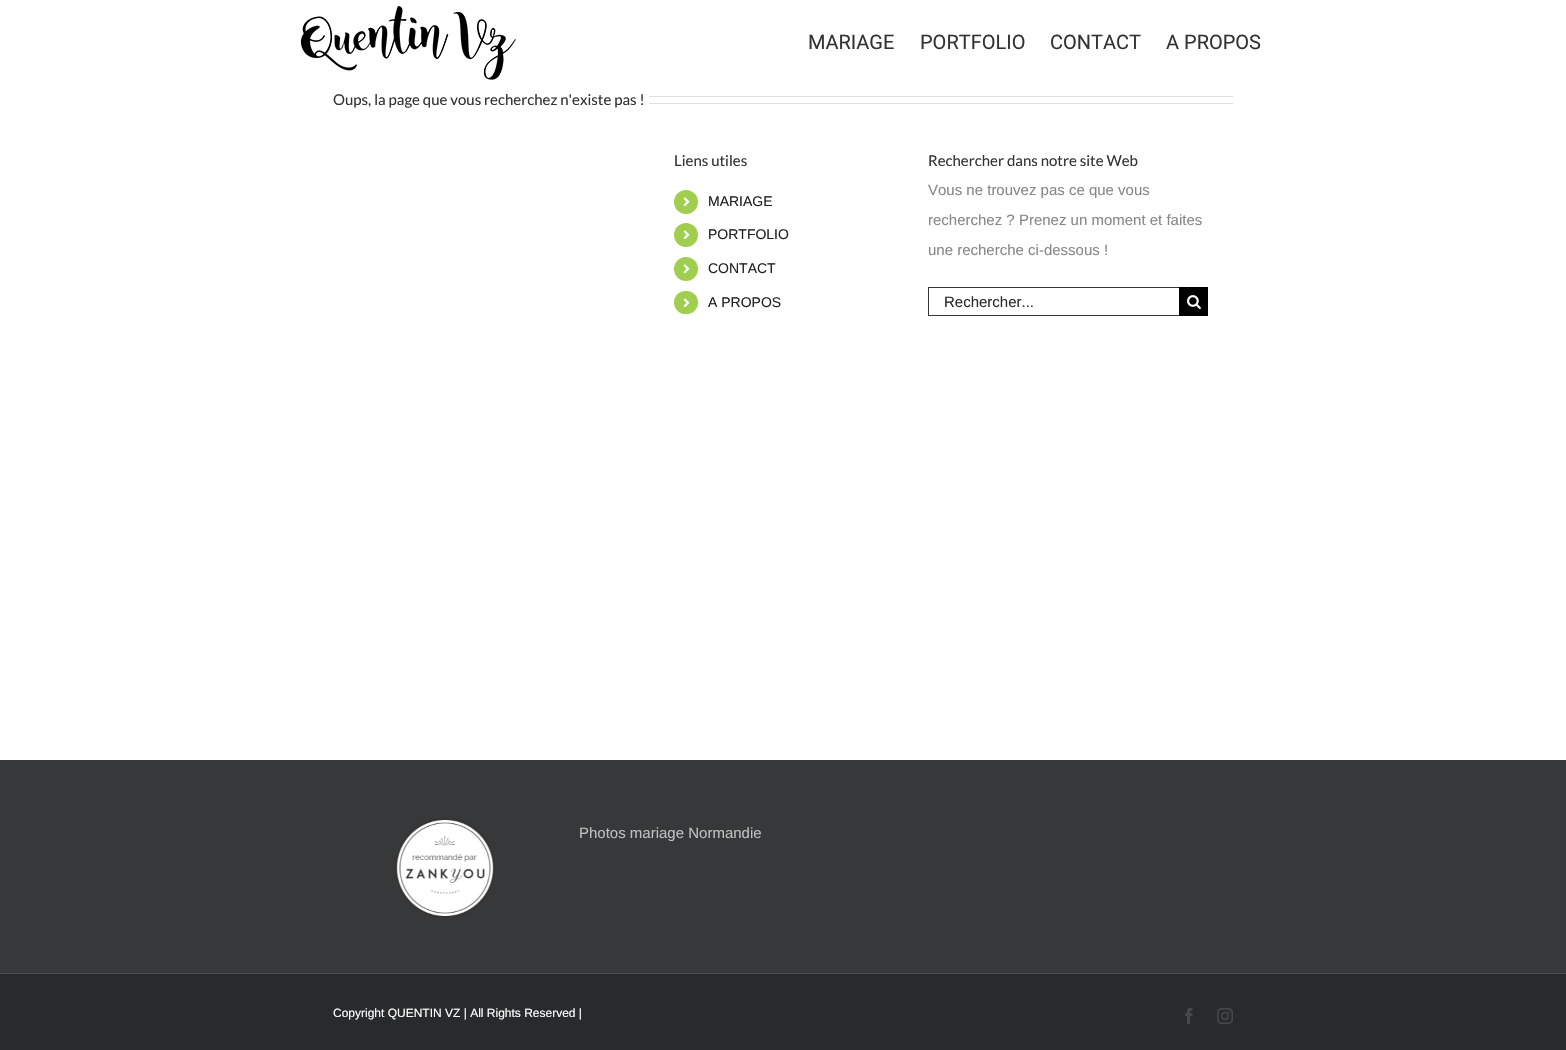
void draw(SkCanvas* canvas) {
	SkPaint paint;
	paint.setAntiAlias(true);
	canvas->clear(0xffffffff);
	canvas->drawImageRect(SkImages::DeferredFromEncodedData(SkData::MakeFromFileName("img1.png")), SkRect::MakeXYWH(300, 5, 216, 75), SkSamplingOptions());
	SkFont f1(fontMgr->matchFamilyStyle("Roboto", SkFontStyle::Normal()), 20);
	f1.setSubpixel(true);
	paint.setColor(0xff333333);
	canvas->drawString("MARIAGE", 808, 49, f1, paint);
	canvas->drawString("PORTFOLIO", 920, 49, f1, paint);
	canvas->drawString("CONTACT", 1050, 49, f1, paint);
	canvas->drawString("A PROPOS", 1166, 49, f1, paint);
	SkFont f2(fontMgr->matchFamilyStyle("Lato", SkFontStyle::Normal()), 15);
	f2.setSubpixel(true);
	canvas->drawString("Oups, la page que vous recherchez n'existe pas !", 333, 105, f2, paint);
	paint.setColor(0xffe0dede);
	canvas->drawRect(SkRect::MakeXYWH(649, 96, 584, 1), paint);
	canvas->drawRect(SkRect::MakeXYWH(649, 103, 584, 1), paint);
	paint.setColor(0xff333333);
	canvas->drawString("Liens utiles", 674, 166, f2, paint);
	paint.setColor(0xffa0ce4e);
	canvas->drawCircle(686, 202, 12, paint);
	canvas->drawImageRect(SkImages::DeferredFromEncodedData(SkData::MakeFromFileName("img2.png")), SkRect::MakeXYWH(683, 197, 7, 10), SkSamplingOptions());
	SkFont f3(fontMgr->matchFamilyStyle("Liberation Sans", SkFontStyle::Normal()), 14);
	f3.setSubpixel(true);
	paint.setColor(0xff212121);
	canvas->drawString("MARIAGE", 708, 206, f3, paint);
	paint.setColor(0xffa0ce4e);
	canvas->drawCircle(686, 235, 12, paint);
	canvas->drawImageRect(SkImages::DeferredFromEncodedData(SkData::MakeFromFileName("img2.png")), SkRect::MakeXYWH(683, 230, 7, 10), SkSamplingOptions());
	paint.setColor(0xff212121);
	canvas->drawString("PORTFOLIO", 708, 239, f3, paint);
	paint.setColor(0xffa0ce4e);
	canvas->drawCircle(686, 269, 12, paint);
	canvas->drawImageRect(SkImages::DeferredFromEncodedData(SkData::MakeFromFileName("img2.png")), SkRect::MakeXYWH(683, 264, 7, 10), SkSamplingOptions());
	paint.setColor(0xff212121);
	canvas->drawString("CONTACT", 708, 273, f3, paint);
	paint.setColor(0xffa0ce4e);
	canvas->drawRoundRect(SkRect::MakeXYWH(674, 291, 24, 23), 11.5, 11.5, paint);
	canvas->drawImageRect(SkImages::DeferredFromEncodedData(SkData::MakeFromFileName("img2.png")), SkRect::MakeXYWH(683, 298, 7, 10), SkSamplingOptions());
	paint.setColor(0xff212121);
	canvas->drawString("A PROPOS", 708, 307, f3, paint);
	paint.setColor(0xff333333);
	canvas->drawString("Rechercher dans notre site Web", 928, 166, f2, paint);
	SkFont f4(fontMgr->matchFamilyStyle("Liberation Sans", SkFontStyle::Normal()), 15);
	f4.setSubpixel(true);
	paint.setColor(0xff888888);
	canvas->drawString("Vous ne trouvez pas ce que vous", 928, 195, f4, paint);
	canvas->drawString("recherchez ? Prenez un moment et faites", 928, 225, f4, paint);
	canvas->drawString("une recherche ci-dessous !", 928, 255, f4, paint);
	paint.setColor(0xff353535);
	canvas->drawRect(SkRect::MakeXYWH(928, 287, 251, 1), paint);
	canvas->drawRect(SkRect::MakeXYWH(928, 315, 251, 1), paint);
	canvas->drawRect(SkRect::MakeXYWH(928, 287, 1, 29), paint);
	paint.setColor(0xff2b2b2a);
	canvas->drawString("Rechercher...", 944, 307, f4, paint);
	paint.setColor(0xff000000);
	canvas->drawRect(SkRect::MakeXYWH(1179, 287, 29, 29), paint);
	canvas->drawImageRect(SkImages::DeferredFromEncodedData(SkData::MakeFromFileName("img3.png")), SkRect::MakeXYWH(1187, 295, 14, 14), SkSamplingOptions());
	paint.setColor(0xff363839);
	canvas->drawRect(SkRect::MakeXYWH(0, 760, 1566, 213), paint);
	canvas->drawImageRect(SkImages::DeferredFromEncodedData(SkData::MakeFromFileName("img4.png")), SkRect::MakeXYWH(395, 818, 100, 100), SkSamplingOptions());
	paint.setColor(0xffbfbfbf);
	canvas->drawString("Photos mariage Normandie", 579, 838, f4, paint);
	paint.setColor(0xff282a2b);
	canvas->drawRect(SkRect::MakeXYWH(0, 974, 1566, 76), paint);
	paint.setColor(0xff4b4c4d);
	canvas->drawRect(SkRect::MakeXYWH(0, 973, 1566, 1), paint);
	SkFont f5(fontMgr->matchFamilyStyle("Liberation Sans", SkFontStyle::Normal()), 12);
	f5.setSubpixel(true);
	paint.setColor(0xffffffff);
	canvas->drawString("Copyright QUENTIN VZ | All Rights Reserved |", 333, 1017, f5, paint);
	canvas->drawImageRect(SkImages::DeferredFromEncodedData(SkData::MakeFromFileName("img5.png")), SkRect::MakeXYWH(1185, 1008, 8, 16), SkSamplingOptions());
	canvas->drawImageRect(SkImages::DeferredFromEncodedData(SkData::MakeFromFileName("img6.png")), SkRect::MakeXYWH(1217, 1008, 16, 16), SkSamplingOptions());
}
